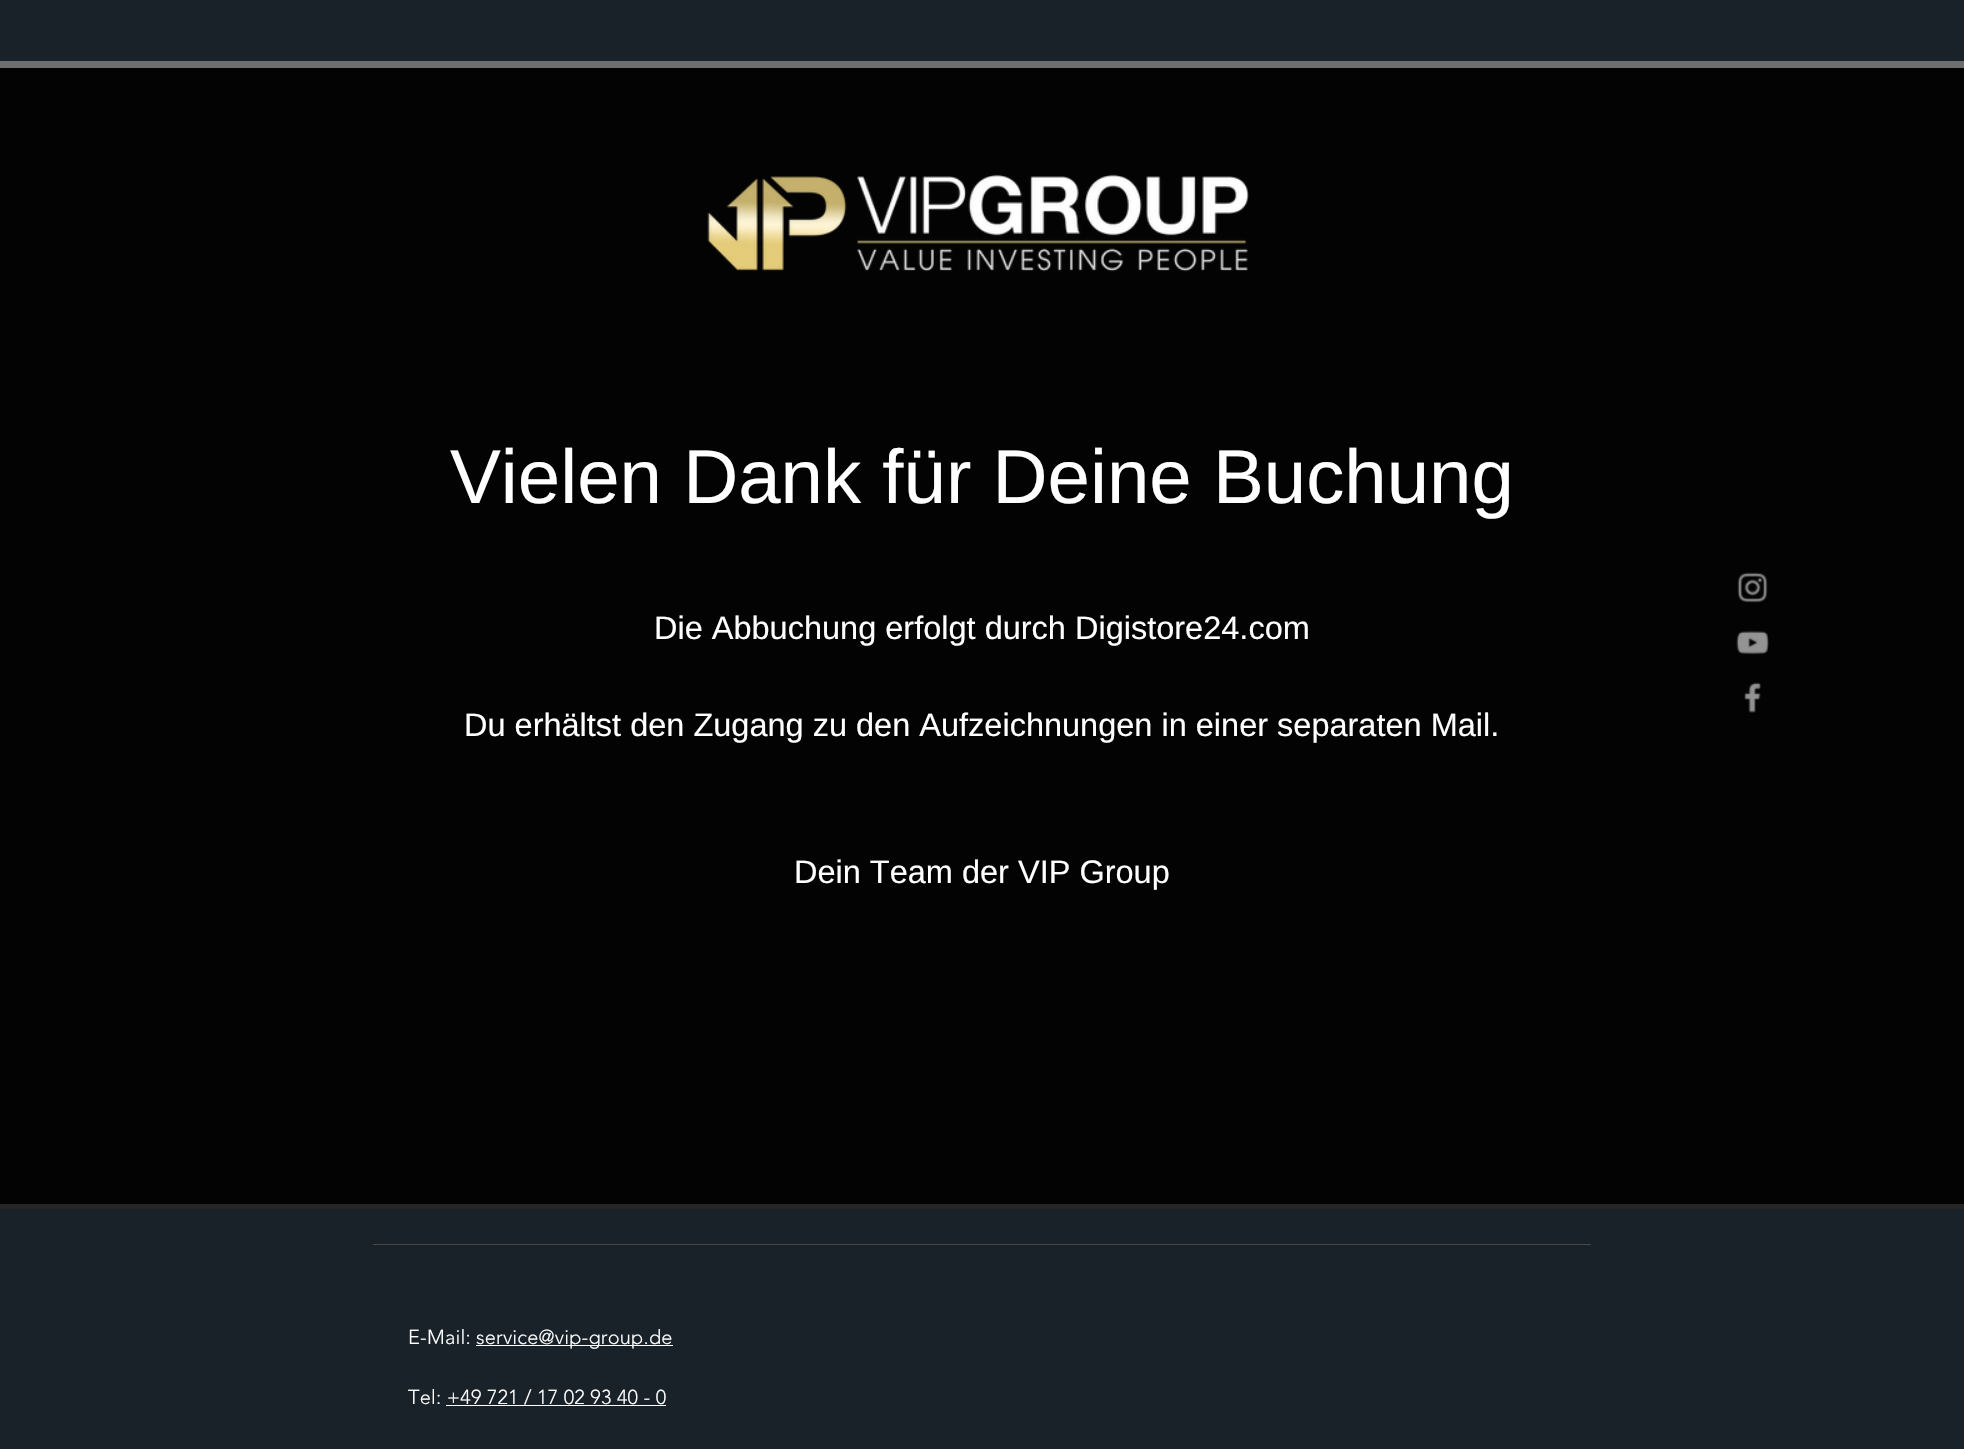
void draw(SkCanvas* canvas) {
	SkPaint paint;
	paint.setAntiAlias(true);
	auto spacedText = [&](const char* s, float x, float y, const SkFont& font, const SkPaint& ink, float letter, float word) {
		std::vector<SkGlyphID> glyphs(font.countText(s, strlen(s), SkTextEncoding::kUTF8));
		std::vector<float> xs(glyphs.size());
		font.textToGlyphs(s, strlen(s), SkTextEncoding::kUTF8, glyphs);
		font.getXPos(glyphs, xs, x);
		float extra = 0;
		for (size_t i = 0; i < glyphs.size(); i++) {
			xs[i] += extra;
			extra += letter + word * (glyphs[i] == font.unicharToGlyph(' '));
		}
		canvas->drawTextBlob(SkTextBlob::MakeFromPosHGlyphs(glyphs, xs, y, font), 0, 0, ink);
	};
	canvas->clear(0xff252525);
	paint.setColor(0xff1a2229);
	canvas->drawRect(SkRect::MakeXYWH(0, 0, 1964, 61), paint);
	paint.setColor(0xff6e6e6e);
	canvas->drawRect(SkRect::MakeXYWH(0, 61, 1964, 7), paint);
	paint.setColor(0xff030303);
	canvas->drawRect(SkRect::MakeXYWH(0, 68, 1964, 1136), paint);
	canvas->drawImageRect(SkImages::DeferredFromEncodedData(SkData::MakeFromFileName("img1.png")), SkRect::MakeXYWH(707, 174, 542, 98), SkSamplingOptions());
	SkFont f1(fontMgr->matchFamilyStyle("Liberation Sans", SkFontStyle::Normal()), 76.25);
	f1.setSubpixel(true);
	paint.setColor(0xffffffff);
	canvas->drawString("Vielen Dank für Deine Buchung", 450, 503, f1, paint);
	SkFont f2(fontMgr->matchFamilyStyle("Liberation Sans", SkFontStyle::Normal()), 32.5);
	f2.setSubpixel(true);
	canvas->drawString("Die Abbuchung erfolgt durch Digistore24.com", 654, 639, f2, paint);
	canvas->drawString("Du erhältst den Zugang zu den Aufzeichnungen in einer separaten Mail.", 464, 736, f2, paint);
	canvas->drawString("Dein Team der VIP Group", 794, 883, f2, paint);
	canvas->drawImageRect(SkImages::DeferredFromEncodedData(SkData::MakeFromFileName("img2.png")), SkRect::MakeXYWH(1737, 572, 31, 31), SkSamplingOptions());
	canvas->drawImageRect(SkImages::DeferredFromEncodedData(SkData::MakeFromFileName("img3.png")), SkRect::MakeXYWH(1736, 630, 33, 25), SkSamplingOptions());
	canvas->drawImageRect(SkImages::DeferredFromEncodedData(SkData::MakeFromFileName("img4.png")), SkRect::MakeXYWH(1744, 682, 17, 31), SkSamplingOptions());
	paint.setColor(0xff1a2229);
	canvas->drawRect(SkRect::MakeXYWH(0, 1209, 1964, 240), paint);
	paint.setColor(0xff494949);
	canvas->drawRect(SkRect::MakeXYWH(373, 1244, 1218, 1), paint);
	SkFont f3(fontMgr->matchFamilyStyle("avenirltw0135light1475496", SkFontStyle(300, SkFontStyle::kNormal_Width, SkFontStyle::kUpright_Slant)), 20);
	f3.setSubpixel(true);
	paint.setColor(0xffffffff);
	spacedText("E-Mail:", 408, 1344, f3, paint, 0.2, 0);
	canvas->drawRect(SkRect::MakeXYWH(476, 1345, 197, 1), paint);
	spacedText("service@vip-group.de", 476, 1344, f3, paint, 0.2, 0);
	spacedText("Tel: +49 721 / 17 02 93 40 - 0", 408, 1404, f3, paint, 0.2, 0);
	canvas->drawRect(SkRect::MakeXYWH(446, 1405, 220, 1), paint);
}
